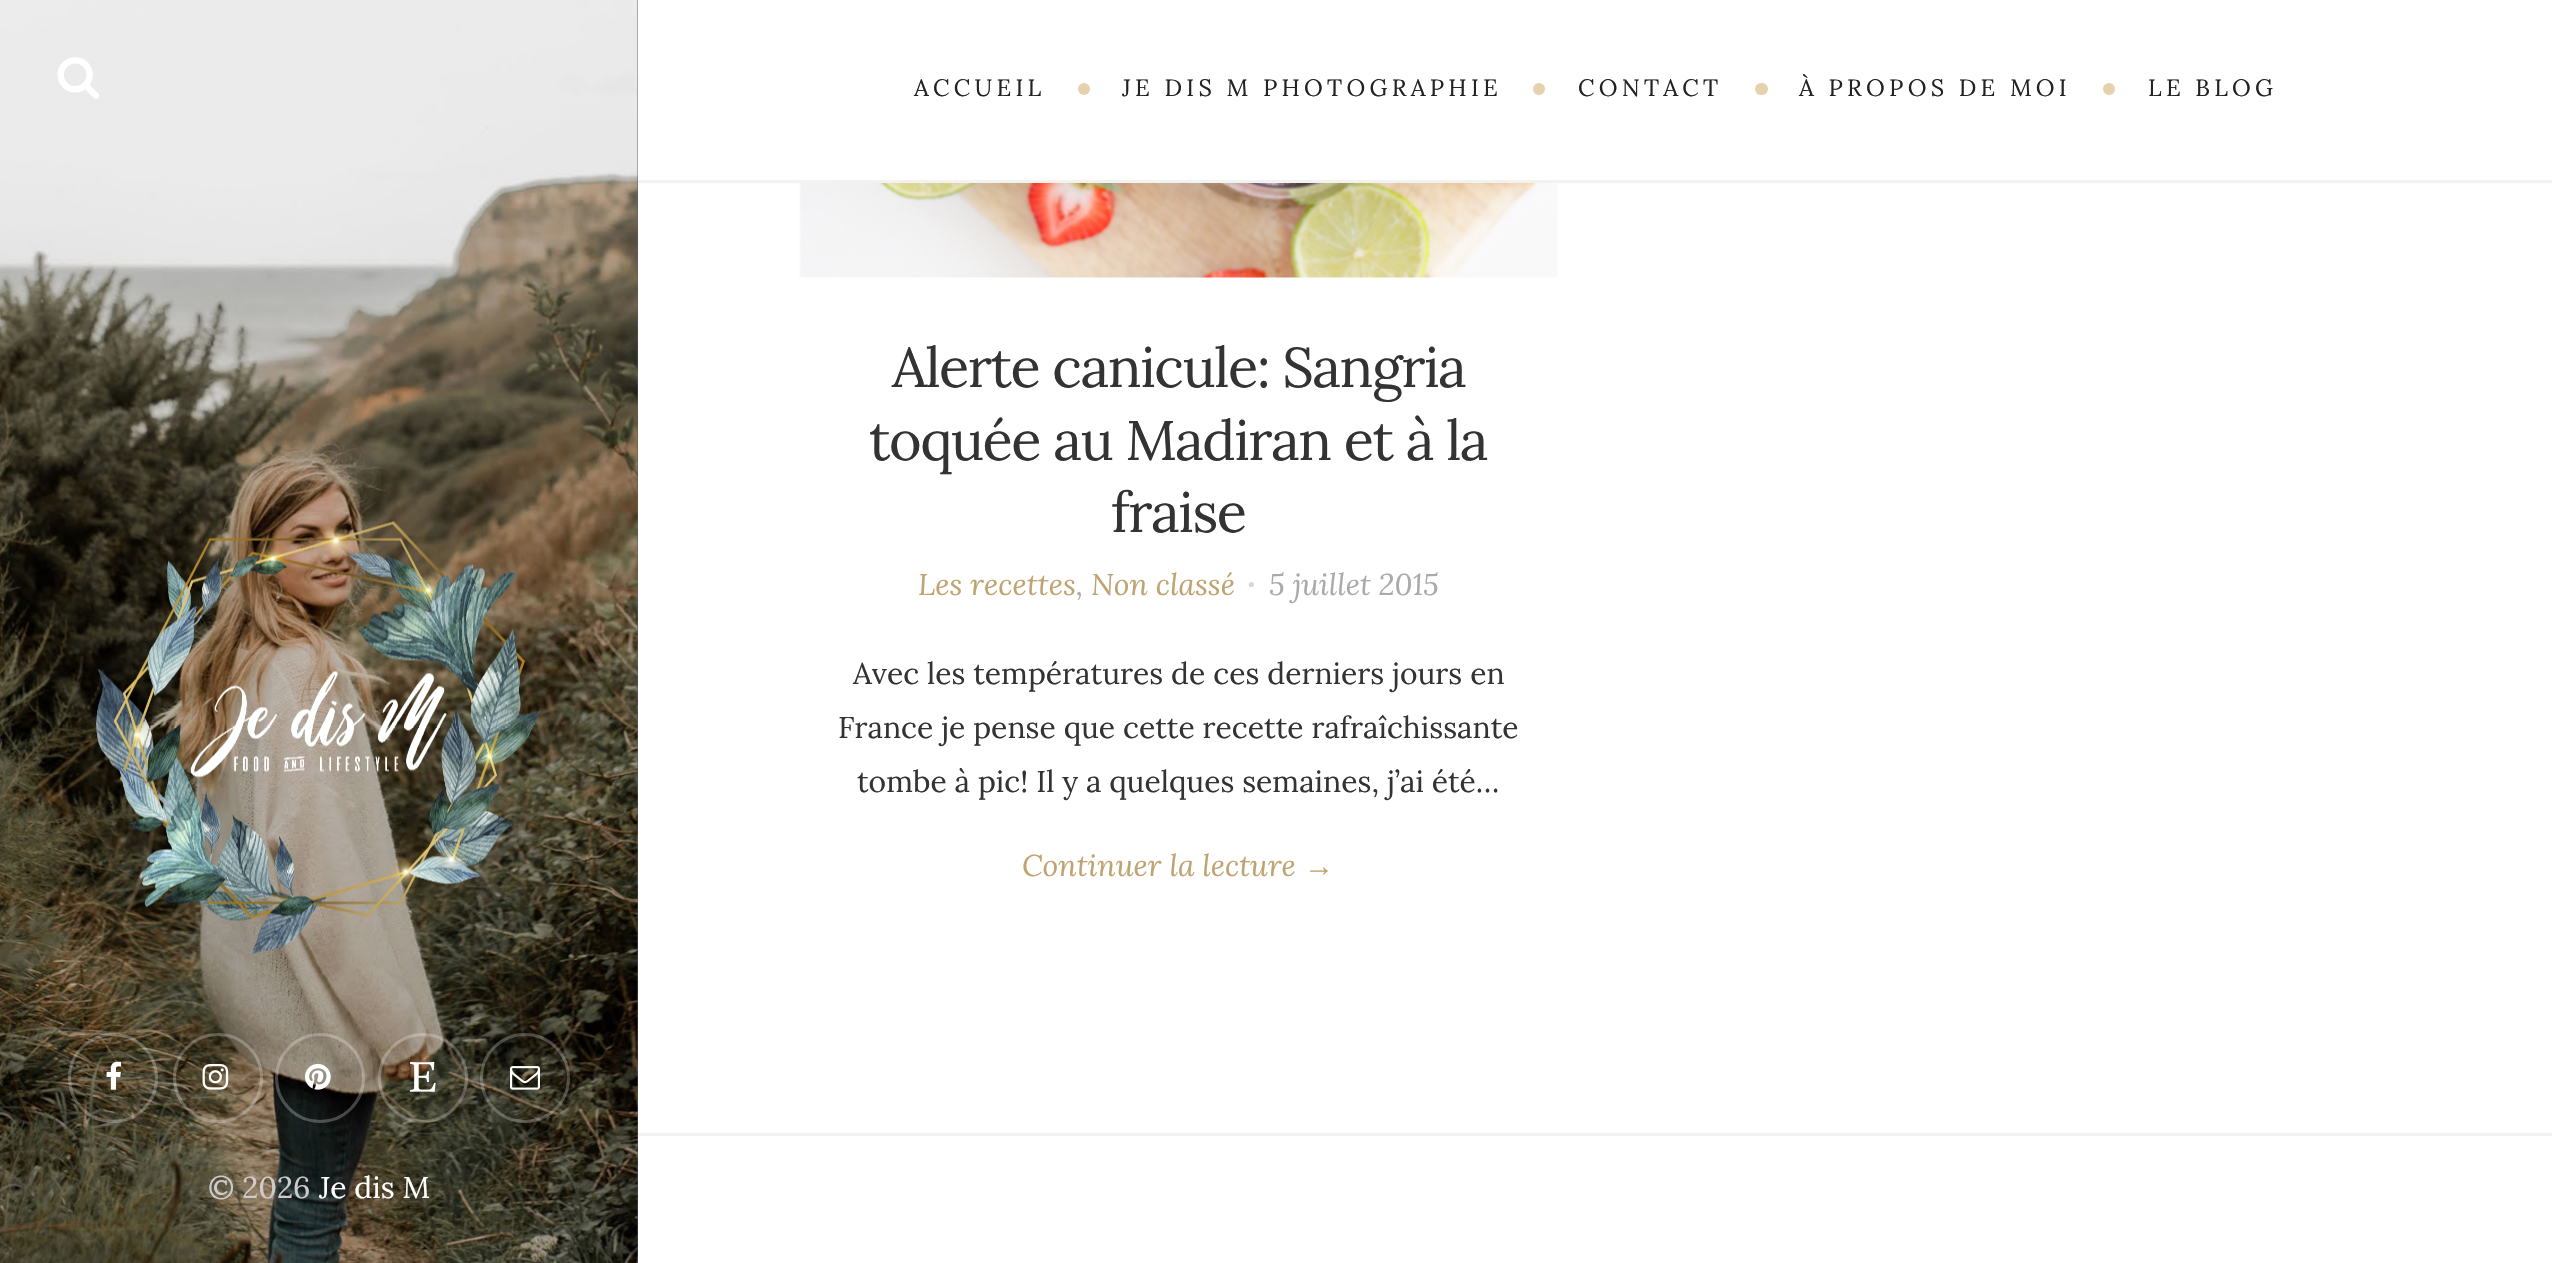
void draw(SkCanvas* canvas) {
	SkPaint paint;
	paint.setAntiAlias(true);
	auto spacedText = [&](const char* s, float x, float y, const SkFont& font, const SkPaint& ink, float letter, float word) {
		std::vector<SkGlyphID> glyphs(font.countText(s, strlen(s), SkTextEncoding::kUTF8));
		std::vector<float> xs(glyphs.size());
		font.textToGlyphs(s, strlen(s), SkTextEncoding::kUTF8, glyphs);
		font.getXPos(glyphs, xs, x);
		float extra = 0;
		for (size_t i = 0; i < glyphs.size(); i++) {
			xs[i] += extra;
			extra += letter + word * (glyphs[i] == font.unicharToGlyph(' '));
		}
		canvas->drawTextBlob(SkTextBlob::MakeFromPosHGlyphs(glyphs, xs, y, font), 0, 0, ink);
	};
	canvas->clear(0xffffffff);
	paint.setColor(0xfff2f2f2);
	canvas->drawRect(SkRect::MakeXYWH(638, 180, 1914, 3), paint);
	SkFont f1(fontMgr->matchFamilyStyle("Lora", SkFontStyle::Normal()), 23.6);
	f1.setSubpixel(true);
	paint.setColor(0xff222222);
	spacedText("ACCUEIL", 914, 96, f1, paint, 4.25, 0);
	paint.setColor(0xffe5d1ad);
	canvas->drawCircle(1084, 89, 6, paint);
	paint.setColor(0xff222222);
	spacedText("JE DIS M PHOTOGRAPHIE", 1122, 96, f1, paint, 4.25, 0);
	paint.setColor(0xffe5d1ad);
	canvas->drawCircle(1539, 89, 6, paint);
	paint.setColor(0xff222222);
	spacedText("CONTACT", 1578, 96, f1, paint, 4.25, 0);
	paint.setColor(0xffe5d1ad);
	canvas->drawRoundRect(SkRect::MakeXYWH(1755, 83, 13, 12), 6, 6, paint);
	paint.setColor(0xff222222);
	spacedText("À PROPOS DE MOI", 1799, 96, f1, paint, 4.25, 0);
	paint.setColor(0xffe5d1ad);
	canvas->drawCircle(2109, 89, 6, paint);
	paint.setColor(0xff222222);
	spacedText("LE BLOG", 2148, 96, f1, paint, 4.25, 0);
	paint.setColor(0xfff2f2f2);
	canvas->drawRect(SkRect::MakeXYWH(638, 1133, 1914, 3), paint);
	canvas->drawImageRect(SkImages::DeferredFromEncodedData(SkData::MakeFromFileName("img1.png")), SkRect::MakeXYWH(799, 183, 759, 95), SkSamplingOptions());
	SkFont f2(fontMgr->matchFamilyStyle("Lora", SkFontStyle::Normal()), 55.75);
	f2.setSubpixel(true);
	paint.setColor(0xff333333);
	spacedText("Alerte canicule: Sangria", 892, 387, f2, paint, -1.5, 0);
	spacedText("toquée au Madiran et à la", 869, 460, f2, paint, -1.5, 0);
	spacedText("fraise", 1111, 532, f2, paint, -1.5, 0);
	SkFont f3(fontMgr->matchFamilyStyle("Lora", SkFontStyle::Italic()), 30);
	f3.setSubpixel(true);
	paint.setColor(0xffbfa370);
	canvas->drawString("Les recettes", 918, 595, f3, paint);
	canvas->drawString("Non classé", 1091, 595, f3, paint);
	SkFont f4(fontMgr->matchFamilyStyle("Lora", SkFontStyle::Italic()), 17);
	f4.setSubpixel(true);
	paint.setColor(0xffd5d5d5);
	canvas->drawString("•", 1248, 591, f4, paint);
	paint.setColor(0xffaaaaaa);
	canvas->drawString("5 juillet 2015", 1269, 595, f3, paint);
	canvas->drawString(",", 1076, 595, f3, paint);
	SkFont f5(fontMgr->matchFamilyStyle("Lora", SkFontStyle::Normal()), 30);
	f5.setSubpixel(true);
	paint.setColor(0xff333333);
	canvas->drawString("Avec les températures de ces derniers jours en", 853, 684, f5, paint);
	canvas->drawString("France je pense que cette recette rafraîchissante", 838, 738, f5, paint);
	canvas->drawString("tombe à pic! Il y a quelques semaines, j’ai été…", 857, 792, f5, paint);
	paint.setColor(0xffbfa370);
	canvas->drawString("Continuer la lecture", 1022, 876, f3, paint);
	SkFont f6(fontMgr->matchFamilyStyle("Liberation Serif", SkFontStyle::Italic()), 30);
	f6.setSubpixel(true);
	canvas->drawString("→", 1304, 876, f6, paint);
	paint.setColor(0xff5a5a5a);
	canvas->drawRect(SkRect::MakeXYWH(637, 0, 1, 1263), paint);
	canvas->drawImageRect(SkImages::DeferredFromEncodedData(SkData::MakeFromFileName("img2.png")), SkRect::MakeXYWH(0, 0, 638, 1263), SkSamplingOptions());
	canvas->drawImageRect(SkImages::DeferredFromEncodedData(SkData::MakeFromFileName("img3.png")), SkRect::MakeXYWH(57, 57, 43, 42), SkSamplingOptions());
	canvas->drawImageRect(SkImages::DeferredFromEncodedData(SkData::MakeFromFileName("img4.png")), SkRect::MakeXYWH(96, 521, 446, 434), SkSamplingOptions());
	paint.setStroke(true);
	paint.setStrokeWidth(3);
	paint.setColor(0x40ffffff);
	canvas->drawCircle(113, 1078, 43.5, paint);
	canvas->drawImageRect(SkImages::DeferredFromEncodedData(SkData::MakeFromFileName("img5.png")), SkRect::MakeXYWH(106, 1061, 16, 29), SkSamplingOptions());
	canvas->drawCircle(218, 1078, 43.5, paint);
	canvas->drawImageRect(SkImages::DeferredFromEncodedData(SkData::MakeFromFileName("img6.png")), SkRect::MakeXYWH(202, 1063, 27, 27), SkSamplingOptions());
	canvas->drawCircle(320, 1078, 43.5, paint);
	canvas->drawImageRect(SkImages::DeferredFromEncodedData(SkData::MakeFromFileName("img7.png")), SkRect::MakeXYWH(305, 1063, 26, 27), SkSamplingOptions());
	canvas->drawCircle(423, 1078, 43.5, paint);
	canvas->drawImageRect(SkImages::DeferredFromEncodedData(SkData::MakeFromFileName("img8.png")), SkRect::MakeXYWH(410, 1061, 26, 31), SkSamplingOptions());
	canvas->drawCircle(525, 1078, 43.5, paint);
	canvas->drawImageRect(SkImages::DeferredFromEncodedData(SkData::MakeFromFileName("img9.png")), SkRect::MakeXYWH(510, 1066, 30, 24), SkSamplingOptions());
	paint.setStroke(false);
	paint.setColor(0xffcccccc);
	canvas->drawString("© 2026", 208, 1198, f5, paint);
	paint.setColor(0xffffffff);
	canvas->drawString("Je dis M", 319, 1198, f5, paint);
}
